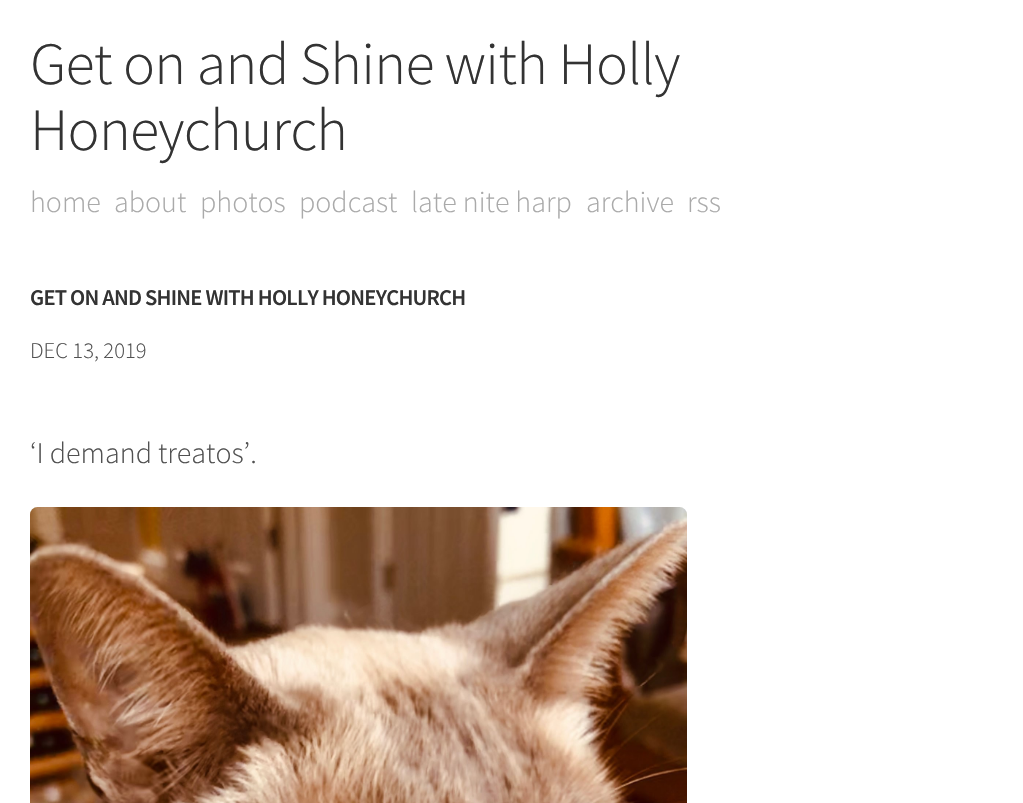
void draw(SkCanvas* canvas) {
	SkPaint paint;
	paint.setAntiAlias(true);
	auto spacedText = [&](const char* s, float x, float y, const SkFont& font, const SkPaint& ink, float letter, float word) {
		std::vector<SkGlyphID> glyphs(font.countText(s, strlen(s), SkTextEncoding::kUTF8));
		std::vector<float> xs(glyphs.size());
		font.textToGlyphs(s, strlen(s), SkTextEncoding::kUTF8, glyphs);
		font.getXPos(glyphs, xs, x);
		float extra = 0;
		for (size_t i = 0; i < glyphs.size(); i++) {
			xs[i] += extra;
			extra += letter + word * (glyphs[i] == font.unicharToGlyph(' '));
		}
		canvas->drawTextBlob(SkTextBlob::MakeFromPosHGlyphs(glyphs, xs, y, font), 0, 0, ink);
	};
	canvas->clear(0xffffffff);
	SkFont f1(fontMgr->matchFamilyStyle("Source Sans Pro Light", SkFontStyle(300, SkFontStyle::kNormal_Width, SkFontStyle::kUpright_Slant)), 60);
	f1.setSubpixel(true);
	paint.setColor(0xff333333);
	spacedText("Get on and Shine with Holly", 30, 84, f1, paint, -0.75, 0);
	spacedText("Honeychurch", 30, 150, f1, paint, -0.75, 0);
	SkFont f2(fontMgr->matchFamilyStyle("Source Sans Pro Light", SkFontStyle(300, SkFontStyle::kNormal_Width, SkFontStyle::kUpright_Slant)), 30);
	f2.setSubpixel(true);
	paint.setColor(0xffaaaaaa);
	canvas->drawString("home", 30, 212, f2, paint);
	canvas->drawString("about", 114, 212, f2, paint);
	canvas->drawString("photos", 200, 212, f2, paint);
	canvas->drawString("podcast", 299, 212, f2, paint);
	canvas->drawString("late nite harp", 411, 212, f2, paint);
	canvas->drawString("archive", 586, 212, f2, paint);
	canvas->drawString("rss", 687, 212, f2, paint);
	SkFont f3(fontMgr->matchFamilyStyle("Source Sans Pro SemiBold", SkFontStyle(600, SkFontStyle::kNormal_Width, SkFontStyle::kUpright_Slant)), 22.5);
	f3.setSubpixel(true);
	paint.setColor(0xff333333);
	spacedText("GET ON AND SHINE WITH HOLLY HONEYCHURCH", 30, 305, f3, paint, -0.75, 0);
	SkFont f4(fontMgr->matchFamilyStyle("Source Sans Pro Light", SkFontStyle(300, SkFontStyle::kNormal_Width, SkFontStyle::kUpright_Slant)), 22.5);
	f4.setSubpixel(true);
	paint.setColor(0xff515151);
	canvas->drawString("DEC 13, 2019", 30, 358, f4, paint);
	canvas->drawString("‘I demand treatos’.", 30, 463, f2, paint);
	canvas->drawImageRect(SkImages::DeferredFromEncodedData(SkData::MakeFromFileName("img1.png")), SkRect::MakeXYWH(30, 507, 657, 296), SkSamplingOptions());
}
